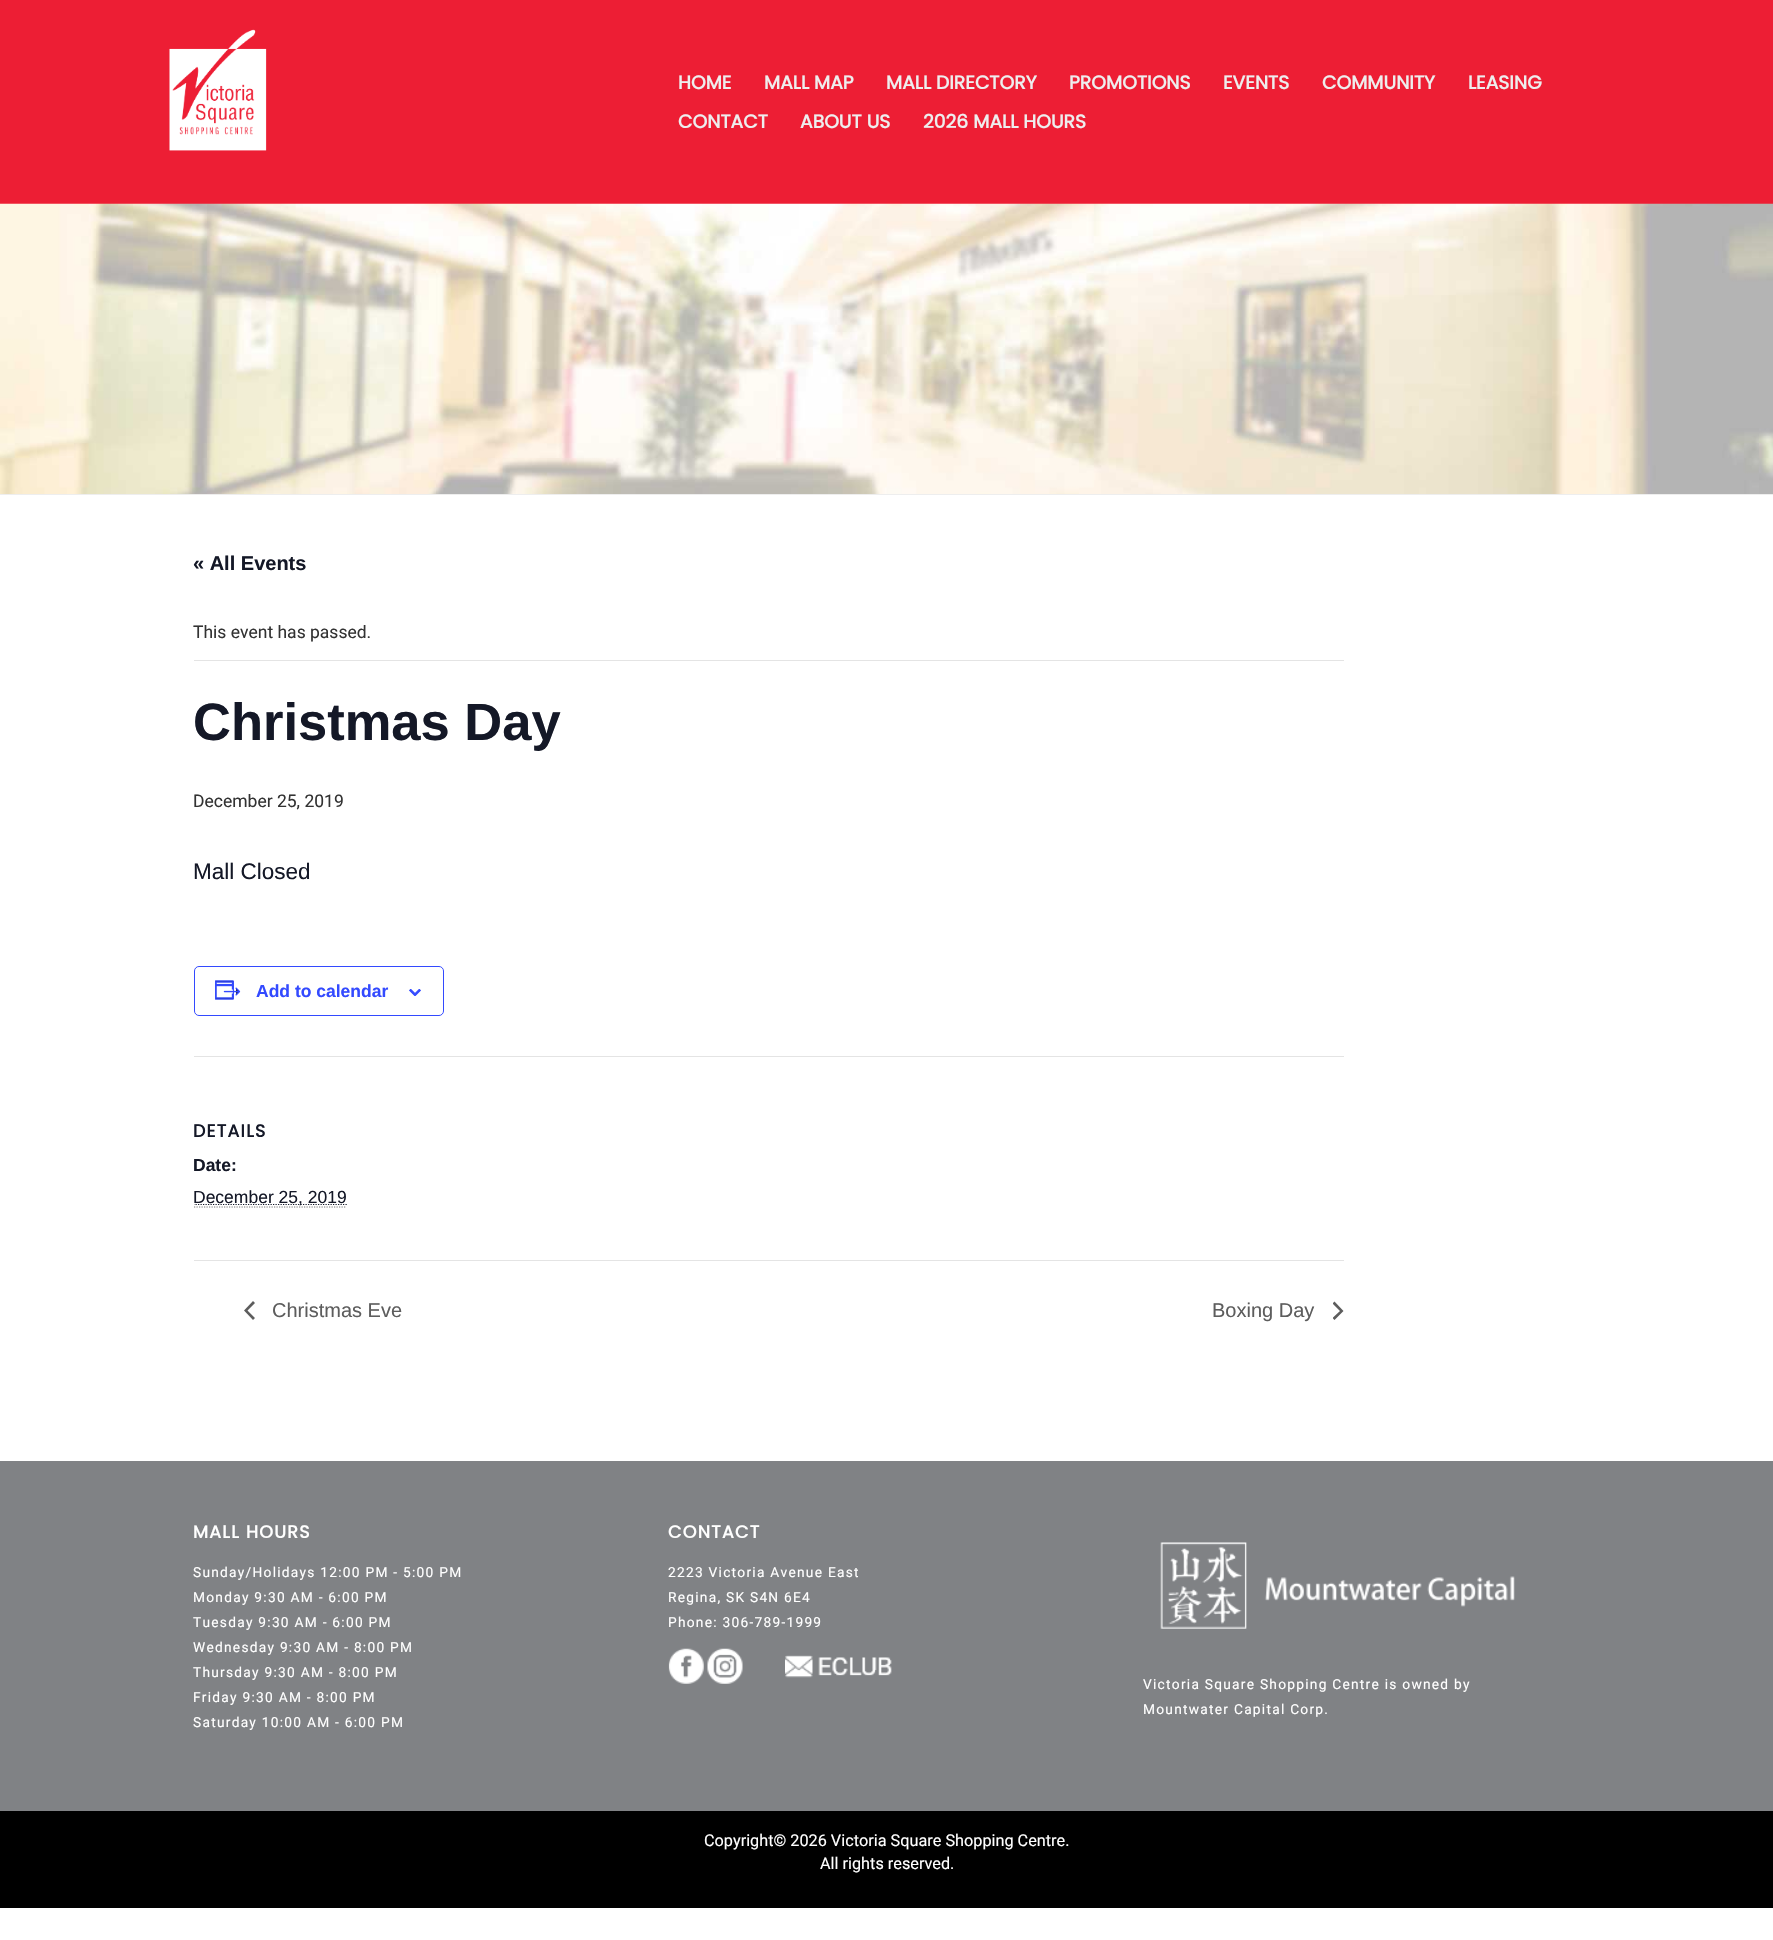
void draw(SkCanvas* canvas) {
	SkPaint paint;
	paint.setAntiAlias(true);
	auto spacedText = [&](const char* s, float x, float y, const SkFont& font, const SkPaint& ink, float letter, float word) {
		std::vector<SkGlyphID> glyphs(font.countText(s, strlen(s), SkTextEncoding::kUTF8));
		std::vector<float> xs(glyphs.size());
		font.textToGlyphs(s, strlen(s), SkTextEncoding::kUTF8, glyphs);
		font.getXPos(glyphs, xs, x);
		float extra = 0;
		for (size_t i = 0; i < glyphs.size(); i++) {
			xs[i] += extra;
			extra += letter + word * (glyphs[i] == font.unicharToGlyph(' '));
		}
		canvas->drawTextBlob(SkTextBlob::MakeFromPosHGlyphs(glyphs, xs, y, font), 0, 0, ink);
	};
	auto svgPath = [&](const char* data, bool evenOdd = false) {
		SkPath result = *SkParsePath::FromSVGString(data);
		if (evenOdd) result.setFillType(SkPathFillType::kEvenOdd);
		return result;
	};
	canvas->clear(0xffffffff);
	paint.setColor(0xffed1e34);
	canvas->drawRect(SkRect::MakeXYWH(0, 0, 1773, 204), paint);
	canvas->drawImageRect(SkImages::DeferredFromEncodedData(SkData::MakeFromFileName("img1.png")), SkRect::MakeXYWH(169, 29, 98, 122), SkSamplingOptions());
	SkFont f1(fontMgr->matchFamilyStyle("Poppins", SkFontStyle::Bold()), 18.75);
	f1.setSubpixel(true);
	paint.setColor(0xffeeeeee);
	canvas->drawString("HOME", 678, 89, f1, paint);
	canvas->drawString("MALL MAP", 764, 89, f1, paint);
	canvas->drawString("MALL DIRECTORY", 886, 89, f1, paint);
	canvas->drawString("PROMOTIONS", 1069, 89, f1, paint);
	canvas->drawString("EVENTS", 1223, 89, f1, paint);
	canvas->drawString("COMMUNITY", 1322, 89, f1, paint);
	canvas->drawString("LEASING", 1468, 89, f1, paint);
	canvas->drawString("CONTACT", 678, 128, f1, paint);
	canvas->drawString("ABOUT US", 800, 128, f1, paint);
	canvas->drawString("2026 MALL HOURS", 923, 128, f1, paint);
	canvas->drawImageRect(SkImages::DeferredFromEncodedData(SkData::MakeFromFileName("img2.png")), SkRect::MakeXYWH(0, 203, 1773, 291), SkSamplingOptions());
	canvas->drawRect(SkRect::MakeXYWH(0, 494, 1773, 1), paint);
	SkFont f2(fontMgr->matchFamilyStyle("Liberation Sans", SkFontStyle::Bold()), 20);
	f2.setSubpixel(true);
	paint.setColor(0xff141827);
	canvas->drawString("« All Events", 193, 570, f2, paint);
	paint.setColor(0xffe4e4e4);
	canvas->drawRect(SkRect::MakeXYWH(194, 660, 1150, 1), paint);
	SkFont f3(fontMgr->matchFamilyStyle("Roboto", SkFontStyle::Normal()), 17.5);
	f3.setSubpixel(true);
	paint.setColor(0xff333333);
	canvas->drawString("This event has passed.", 193, 638, f3, paint);
	SkFont f4(fontMgr->matchFamilyStyle("Liberation Sans", SkFontStyle::Bold()), 52.5);
	f4.setSubpixel(true);
	paint.setColor(0xff141827);
	canvas->drawString("Christmas Day", 193, 740, f4, paint);
	paint.setColor(0xff333333);
	canvas->drawString("December 25, 2019", 193, 807, f3, paint);
	SkFont f5(fontMgr->matchFamilyStyle("Liberation Sans", SkFontStyle::Normal()), 22.5);
	f5.setSubpixel(true);
	paint.setColor(0xff141827);
	canvas->drawString("Mall Closed", 193, 879, f5, paint);
	paint.setStroke(true);
	paint.setStrokeWidth(1);
	paint.setColor(0xff334aff);
	canvas->drawRoundRect(SkRect::MakeXYWH(194.5, 966.5, 249, 49), 4.5, 4.5, paint);
	canvas->drawImageRect(SkImages::DeferredFromEncodedData(SkData::MakeFromFileName("img3.png")), SkRect::MakeXYWH(215, 980, 26, 20), SkSamplingOptions());
	SkFont f6(fontMgr->matchFamilyStyle("Liberation Sans", SkFontStyle::Bold()), 17.5);
	f6.setSubpixel(true);
	paint.setStroke(false);
	canvas->drawString("Add to calendar", 256, 997, f6, paint);
	canvas->drawImageRect(SkImages::DeferredFromEncodedData(SkData::MakeFromFileName("img4.png")), SkRect::MakeXYWH(409, 989, 12, 7), SkSamplingOptions());
	paint.setColor(0xffe4e4e4);
	canvas->drawRect(SkRect::MakeXYWH(194, 1056, 1150, 1), paint);
	SkFont f7(fontMgr->matchFamilyStyle("Poppins", SkFontStyle::Bold()), 17.5);
	f7.setSubpixel(true);
	paint.setColor(0xff141827);
	spacedText("DETAILS", 193, 1137, f7, paint, 1.25, 0);
	canvas->drawString("Date:", 193, 1171, f6, paint);
	canvas->save();
	canvas->clipRect(SkRect::MakeXYWH(194, 854, 1150, 380));
	paint.setStroke(true);
	paint.setStrokeWidth(1.2);
	paint.setPathEffect(SkDashPathEffect::Make({{1.25f, 1.25f}}, 0));
	canvas->drawPath(svgPath("M193 1204.5H347"), paint);
	paint.setPathEffect(nullptr);
	canvas->restore();
	SkFont f8(fontMgr->matchFamilyStyle("Liberation Sans", SkFontStyle::Normal()), 17.5);
	f8.setSubpixel(true);
	paint.setStroke(false);
	canvas->drawString("December 25, 2019", 193, 1203, f8, paint);
	paint.setStroke(true);
	paint.setColor(0xff777777);
	paint.setPathEffect(SkDashPathEffect::Make({{1.25f, 1.25f}}, 0));
	canvas->drawPath(svgPath("M194 1207H346"), paint);
	paint.setPathEffect(nullptr);
	paint.setStroke(false);
	paint.setColor(0xffe4e4e4);
	canvas->drawRect(SkRect::MakeXYWH(194, 1260, 1150, 1), paint);
	paint.setColor(0xff5d5d5d);
	canvas->drawPath(svgPath("M255 1318L253 1320L244 1310.5L253 1301L255 1303L247.5 1310.5Z"), paint);
	SkFont f9(fontMgr->matchFamilyStyle("Liberation Sans", SkFontStyle::Normal()), 20);
	f9.setSubpixel(true);
	canvas->drawString("Christmas Eve", 272, 1317, f9, paint);
	canvas->drawString("Boxing Day", 1212, 1317, f9, paint);
	canvas->save();
	canvas->clipRect(SkRect::MakeXYWH(1333, 1301, 11, 19));
	canvas->drawPath(svgPath("M1332.5 1303.5L1334.5 1301.5L1343.5 1311L1334.5 1320L1332.5 1318L1340 1311Z"), paint);
	canvas->restore();
	paint.setColor(0xff808285);
	canvas->drawRect(SkRect::MakeXYWH(0, 1461, 1773, 350), paint);
	paint.setColor(0xffffffff);
	spacedText("MALL HOURS", 193, 1538, f7, paint, 1.25, 0);
	SkFont f10(fontMgr->matchFamilyStyle("Roboto", SkFontStyle::Normal()), 13.75);
	f10.setSubpixel(true);
	spacedText("Sunday/Holidays 12:00 PM - 5:00 PM", 193, 1577, f10, paint, 1.25, 0);
	spacedText("Monday 9:30 AM - 6:00 PM", 193, 1602, f10, paint, 1.25, 0);
	spacedText("Tuesday 9:30 AM - 6:00 PM", 193, 1627, f10, paint, 1.25, 0);
	spacedText("Wednesday 9:30 AM - 8:00 PM", 193, 1652, f10, paint, 1.25, 0);
	spacedText("Thursday 9:30 AM - 8:00 PM", 193, 1677, f10, paint, 1.25, 0);
	spacedText("Friday 9:30 AM - 8:00 PM", 193, 1702, f10, paint, 1.25, 0);
	spacedText("Saturday 10:00 AM - 6:00 PM", 193, 1727, f10, paint, 1.25, 0);
	spacedText("CONTACT", 668, 1538, f7, paint, 1.25, 0);
	spacedText("2223 Victoria Avenue East", 668, 1577, f10, paint, 1.25, 0);
	spacedText("Regina, SK S4N 6E4", 668, 1602, f10, paint, 1.25, 0);
	spacedText("Phone: 306-789-1999", 668, 1627, f10, paint, 1.25, 0);
	canvas->drawImageRect(SkImages::DeferredFromEncodedData(SkData::MakeFromFileName("img5.png")), SkRect::MakeXYWH(668, 1648, 36, 36), SkSamplingOptions());
	canvas->drawImageRect(SkImages::DeferredFromEncodedData(SkData::MakeFromFileName("img6.png")), SkRect::MakeXYWH(707, 1648, 36, 36), SkSamplingOptions());
	canvas->drawImageRect(SkImages::DeferredFromEncodedData(SkData::MakeFromFileName("img7.png")), SkRect::MakeXYWH(785, 1655, 107, 23), SkSamplingOptions());
	canvas->drawImageRect(SkImages::DeferredFromEncodedData(SkData::MakeFromFileName("img8.png")), SkRect::MakeXYWH(1160, 1542, 355, 87), SkSamplingOptions());
	spacedText("Victoria Square Shopping Centre is owned by", 1143, 1689, f10, paint, 1.25, 0);
	spacedText("Mountwater Capital Corp.", 1143, 1714, f10, paint, 1.25, 0);
	paint.setColor(0xff000000);
	canvas->drawRect(SkRect::MakeXYWH(0, 1811, 1773, 97), paint);
	SkFont f11(fontMgr->matchFamilyStyle("Roboto", SkFontStyle::Normal()), 16.25);
	f11.setSubpixel(true);
	paint.setColor(0xffffffff);
	canvas->drawString("Copyright© 2026 Victoria Square Shopping Centre.", 704, 1846, f11, paint);
	canvas->drawString("All rights reserved.", 820, 1869, f11, paint);
}
